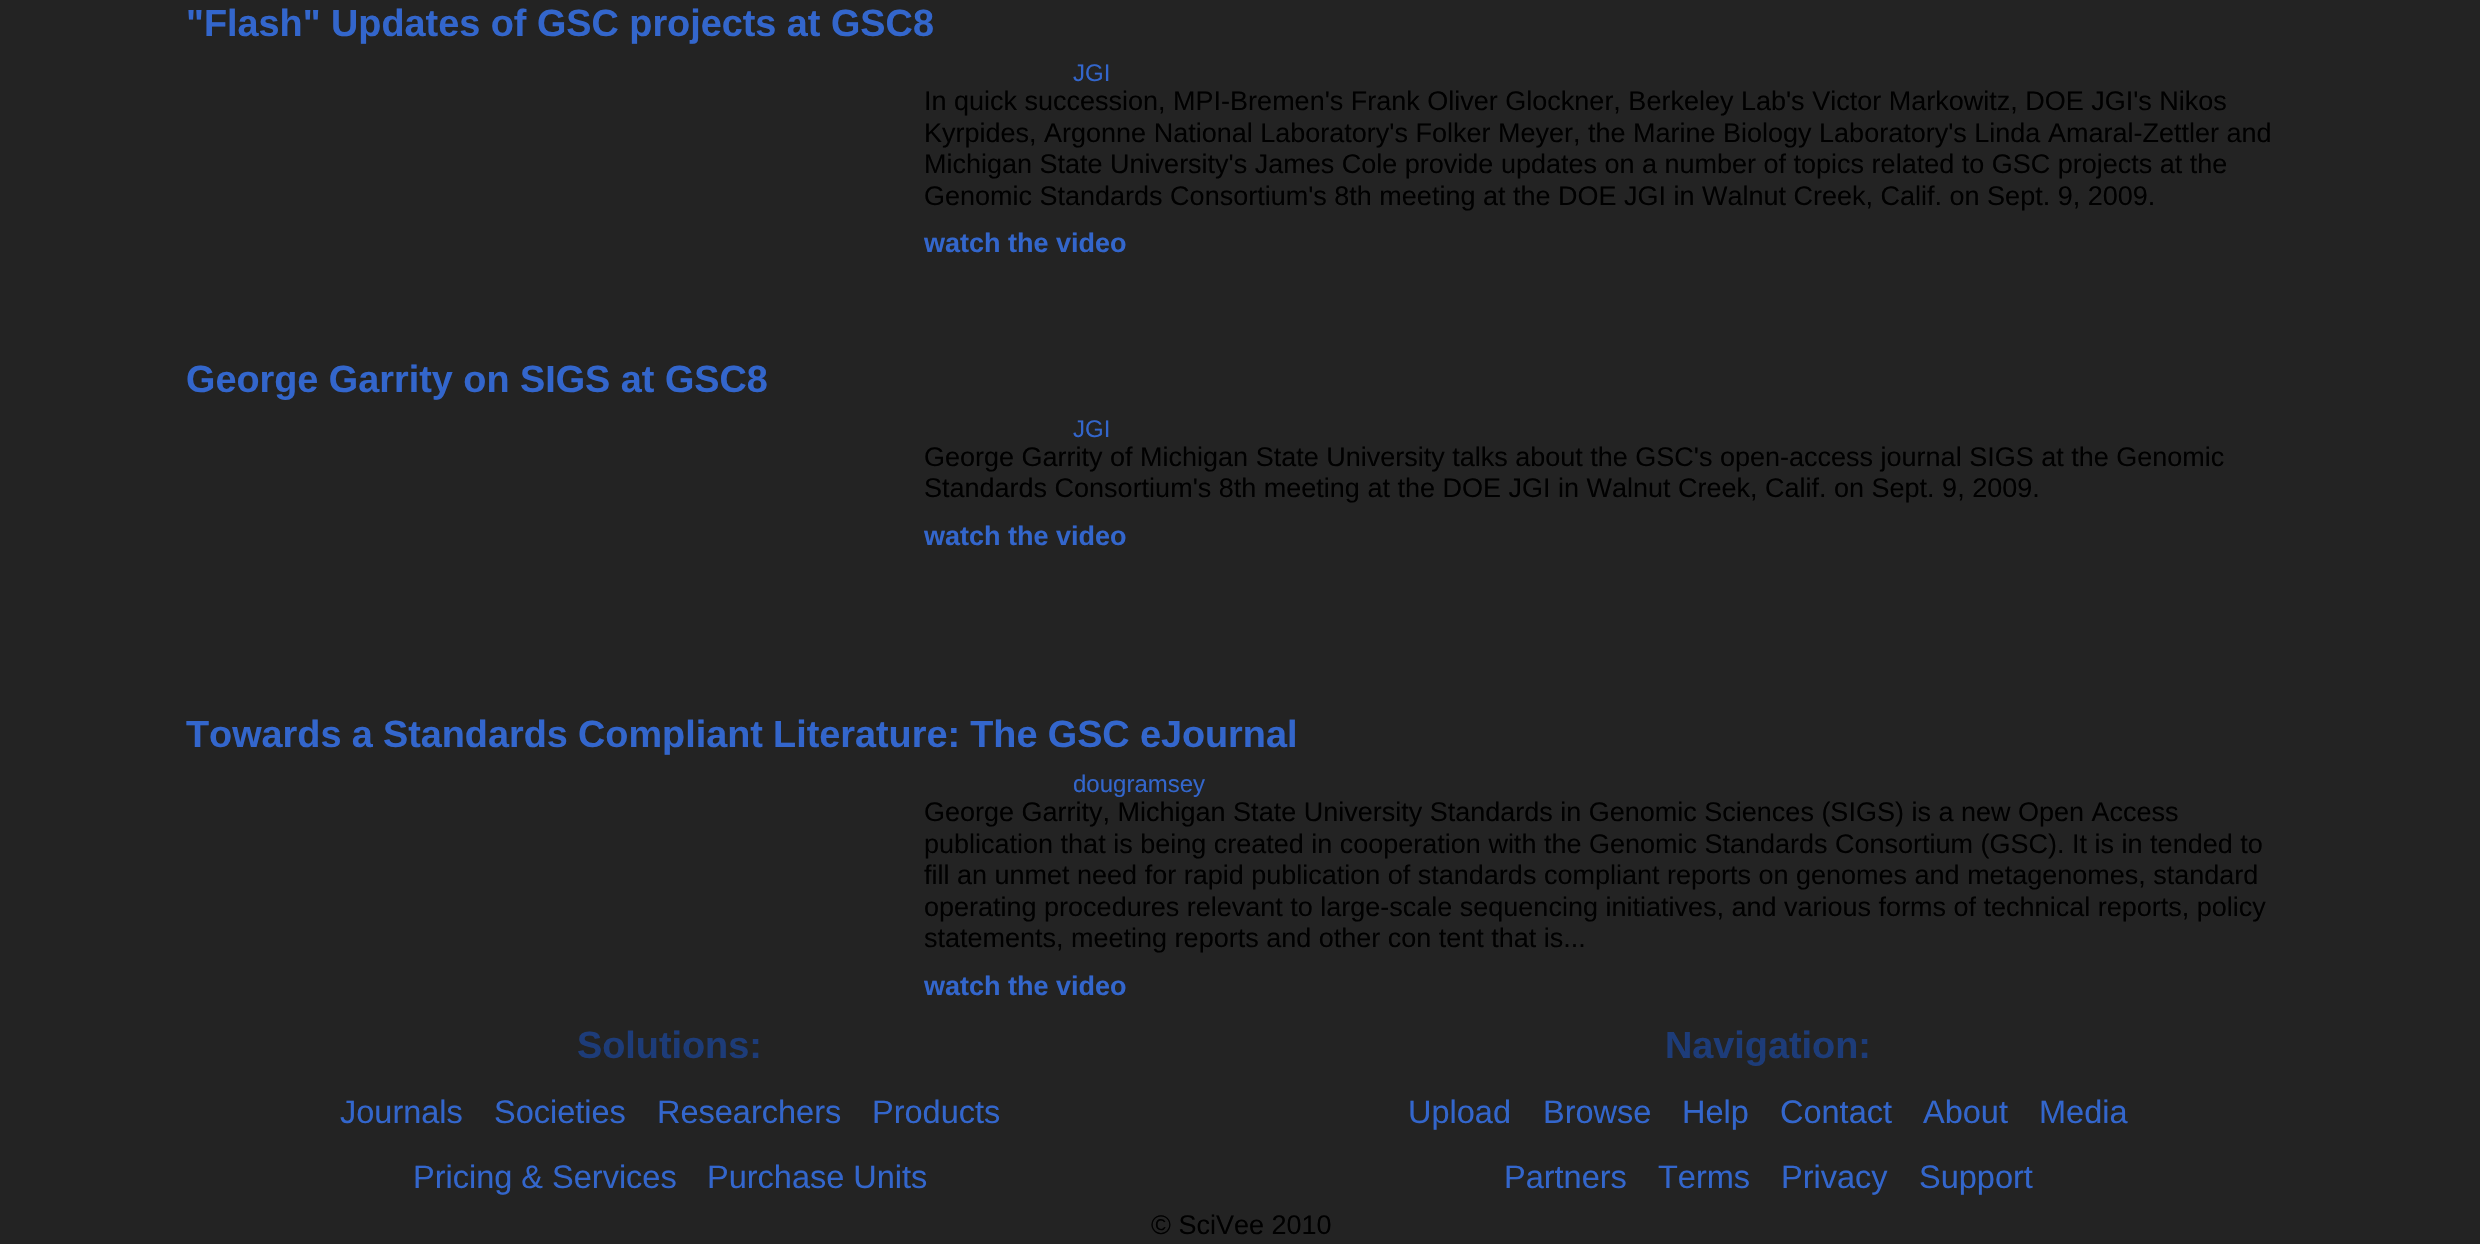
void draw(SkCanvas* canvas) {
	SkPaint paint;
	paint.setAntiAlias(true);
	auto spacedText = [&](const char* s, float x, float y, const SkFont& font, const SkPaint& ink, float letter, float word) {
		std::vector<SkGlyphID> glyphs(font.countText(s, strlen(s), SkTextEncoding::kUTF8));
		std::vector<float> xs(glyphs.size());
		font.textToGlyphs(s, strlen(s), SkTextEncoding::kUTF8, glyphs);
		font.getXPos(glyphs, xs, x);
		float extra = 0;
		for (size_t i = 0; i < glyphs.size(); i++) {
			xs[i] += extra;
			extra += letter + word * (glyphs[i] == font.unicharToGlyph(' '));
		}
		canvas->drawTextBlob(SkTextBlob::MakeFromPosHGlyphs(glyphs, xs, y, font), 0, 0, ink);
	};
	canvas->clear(0xff232323);
	SkFont f1(fontMgr->matchFamilyStyle("Liberation Sans", SkFontStyle::Bold()), 37.8);
	f1.setSubpixel(true);
	paint.setColor(0xff3366cc);
	canvas->drawString("\"Flash\" Updates of GSC projects at GSC8", 186, 36, f1, paint);
	SkFont f2(fontMgr->matchFamilyStyle("Liberation Sans", SkFontStyle::Normal()), 24);
	f2.setSubpixel(true);
	canvas->drawString("JGI", 1073, 81, f2, paint);
	SkFont f3(fontMgr->matchFamilyStyle("Liberation Sans", SkFontStyle::Normal()), 27);
	f3.setSubpixel(true);
	paint.setColor(0xff000000);
	canvas->drawString("In quick succession, MPI-Bremen's Frank Oliver Glockner, Berkeley Lab's Victor Markowitz, DOE JGI's Nikos", 924, 110, f3, paint);
	canvas->drawString("Kyrpides, Argonne National Laboratory's Folker Meyer, the Marine Biology Laboratory's Linda Amaral-Zettler and", 924, 142, f3, paint);
	canvas->drawString("Michigan State University's James Cole provide updates on a number of topics related to GSC projects at the", 924, 173, f3, paint);
	canvas->drawString("Genomic Standards Consortium's 8th meeting at the DOE JGI in Walnut Creek, Calif. on Sept. 9, 2009.", 924, 205, f3, paint);
	SkFont f4(fontMgr->matchFamilyStyle("Liberation Sans", SkFontStyle::Bold()), 27);
	f4.setSubpixel(true);
	paint.setColor(0xff3366cc);
	canvas->drawString("watch the video", 924, 252, f4, paint);
	canvas->drawString("George Garrity on SIGS at GSC8", 186, 392, f1, paint);
	canvas->drawString("JGI", 1073, 437, f2, paint);
	paint.setColor(0xff000000);
	canvas->drawString("George Garrity of Michigan State University talks about the GSC's open-access journal SIGS at the Genomic", 924, 466, f3, paint);
	canvas->drawString("Standards Consortium's 8th meeting at the DOE JGI in Walnut Creek, Calif. on Sept. 9, 2009.", 924, 497, f3, paint);
	paint.setColor(0xff3366cc);
	canvas->drawString("watch the video", 924, 545, f4, paint);
	spacedText("Towards a Standards Compliant Literature: The GSC eJournal", 186, 747, f1, paint, 0, -0.25);
	canvas->drawString("dougramsey", 1073, 792, f2, paint);
	paint.setColor(0xff000000);
	canvas->drawString("George Garrity, Michigan State University Standards in Genomic Sciences (SIGS) is a new Open Access", 924, 821, f3, paint);
	canvas->drawString("publication that is being created in cooperation with the Genomic Standards Consortium (GSC). It is in tended to", 924, 853, f3, paint);
	canvas->drawString("fill an unmet need for rapid publication of standards compliant reports on genomes and metagenomes, standard", 924, 884, f3, paint);
	canvas->drawString("operating procedures relevant to large-scale sequencing initiatives, and various forms of technical reports, policy", 924, 916, f3, paint);
	canvas->drawString("statements, meeting reports and other con tent that is...", 924, 947, f3, paint);
	paint.setColor(0xff3366cc);
	canvas->drawString("watch the video", 924, 995, f4, paint);
	paint.setColor(0xff1d3c79);
	canvas->drawString("Solutions:", 577, 1058, f1, paint);
	SkFont f5(fontMgr->matchFamilyStyle("Liberation Sans", SkFontStyle::Normal()), 32.5);
	f5.setSubpixel(true);
	paint.setColor(0xff3366cc);
	canvas->drawString("Journals", 340, 1123, f5, paint);
	canvas->drawString("Societies", 494, 1123, f5, paint);
	canvas->drawString("Researchers", 657, 1123, f5, paint);
	canvas->drawString("Products", 872, 1123, f5, paint);
	canvas->drawString("Pricing & Services", 413, 1188, f5, paint);
	canvas->drawString("Purchase Units", 707, 1188, f5, paint);
	paint.setColor(0xff1d3c79);
	canvas->drawString("Navigation:", 1665, 1058, f1, paint);
	paint.setColor(0xff3366cc);
	canvas->drawString("Upload", 1408, 1123, f5, paint);
	canvas->drawString("Browse", 1543, 1123, f5, paint);
	canvas->drawString("Help", 1682, 1123, f5, paint);
	canvas->drawString("Contact", 1780, 1123, f5, paint);
	canvas->drawString("About", 1923, 1123, f5, paint);
	canvas->drawString("Media", 2039, 1123, f5, paint);
	canvas->drawString("Partners", 1504, 1188, f5, paint);
	canvas->drawString("Terms", 1658, 1188, f5, paint);
	canvas->drawString("Privacy", 1781, 1188, f5, paint);
	canvas->drawString("Support", 1919, 1188, f5, paint);
	paint.setColor(0xff000000);
	canvas->drawString("© SciVee 2010", 1151, 1234, f3, paint);
}
